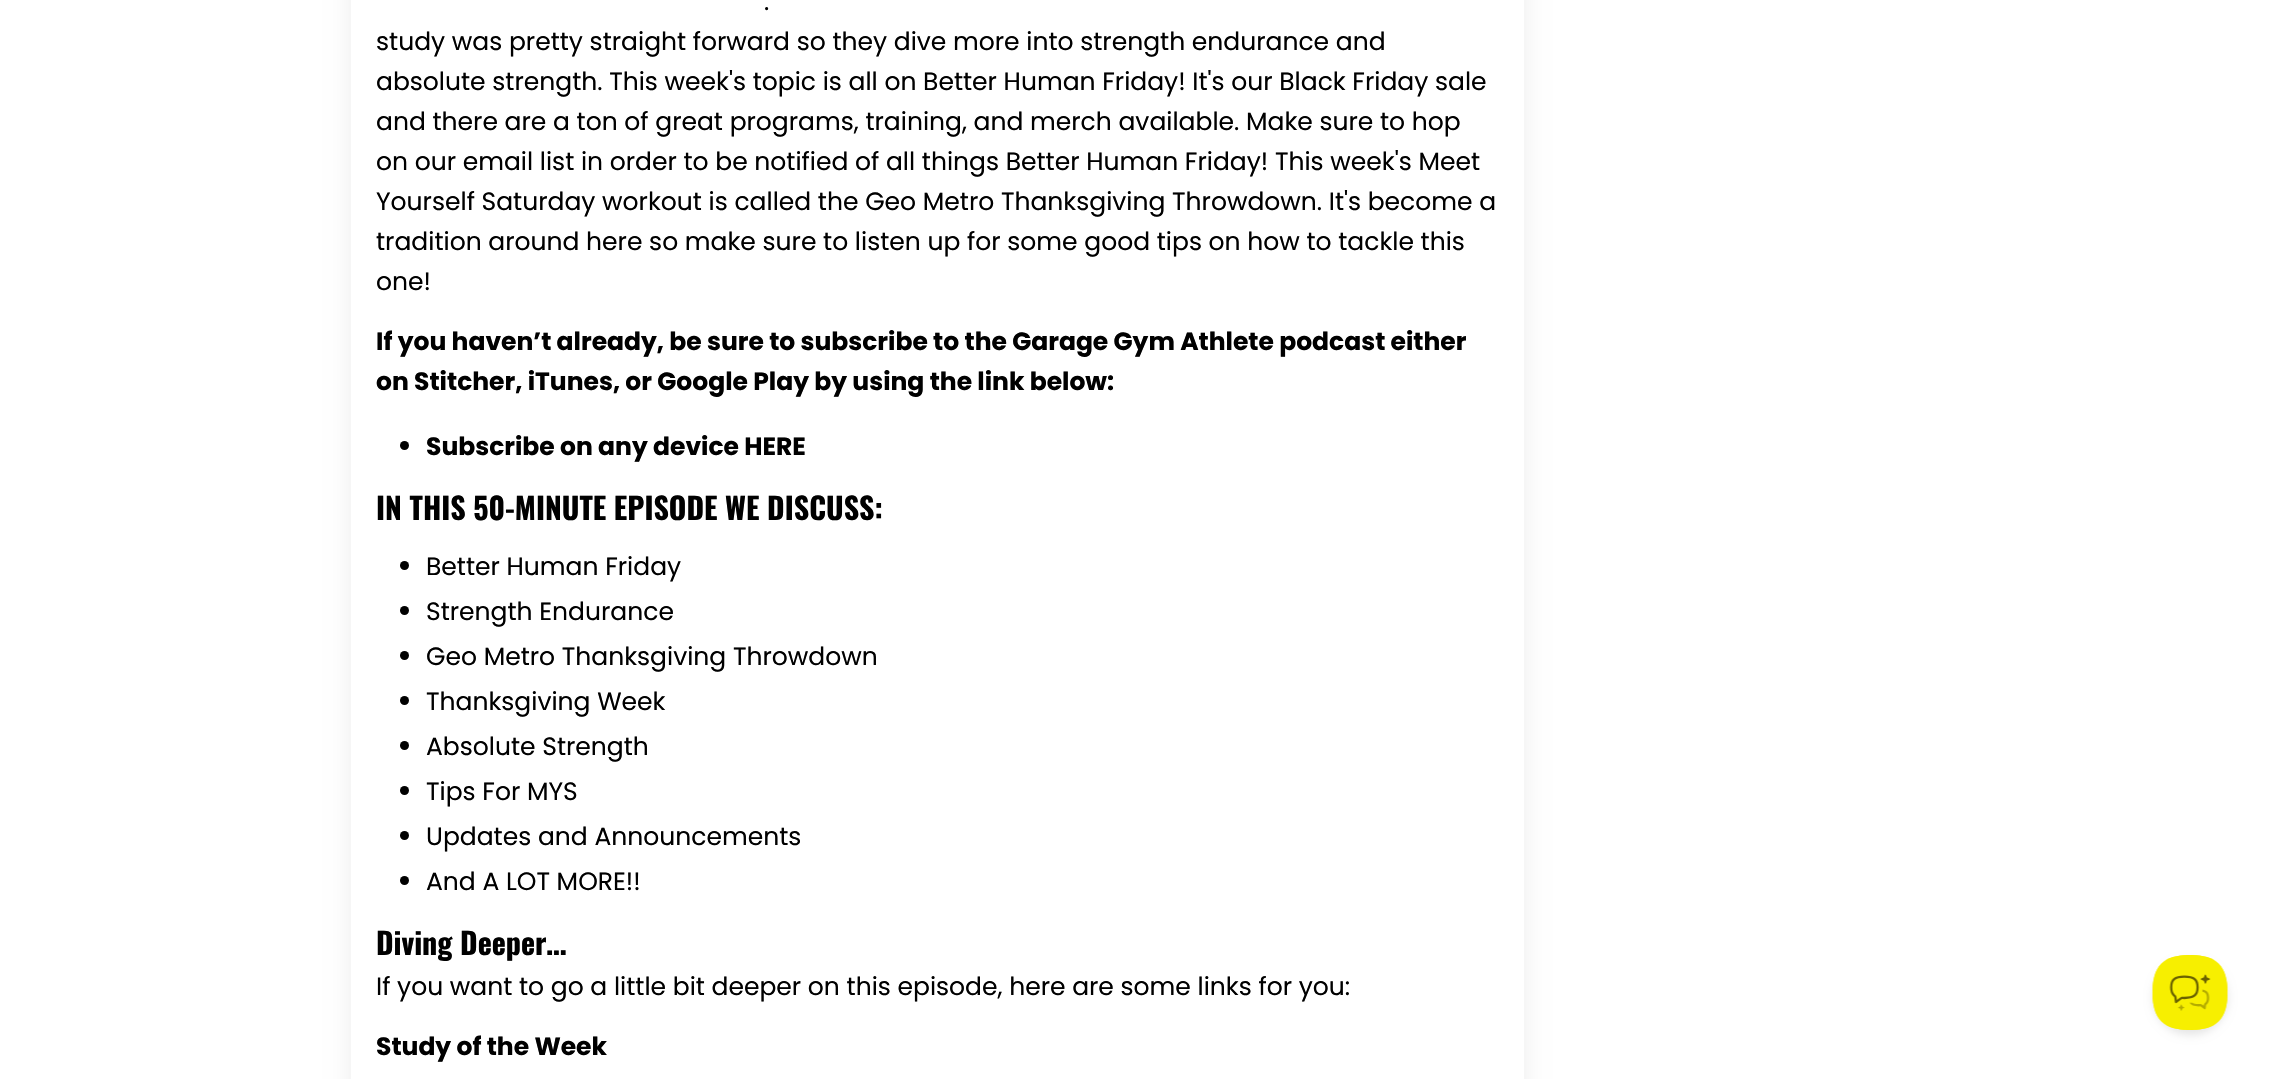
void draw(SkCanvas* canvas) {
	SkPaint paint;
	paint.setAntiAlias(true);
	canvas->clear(0xffffffff);
	paint.setColor(0x12000000);
	paint.setMaskFilter(SkMaskFilter::MakeBlur(kNormal_SkBlurStyle, 12.5));
	canvas->drawRoundRect(SkRect::MakeXYWH(351, -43, 1173, 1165), 5, 5, paint);
	paint.setMaskFilter(nullptr);
	paint.setColor(0xffffffff);
	canvas->drawRect(SkRect::MakeXYWH(351, 0, 1173, 1079), paint);
	SkFont f1(fontMgr->matchFamilyStyle("Poppins", SkFontStyle::Normal()), 25);
	f1.setSubpixel(true);
	paint.setColor(0xff000000);
	canvas->drawString(".", 764, 10, f1, paint);
	canvas->drawString("study was pretty straight forward so they dive more into strength endurance and", 376, 50, f1, paint);
	canvas->drawString("absolute strength. This week's topic is all on Better Human Friday! It's our Black Friday sale", 376, 90, f1, paint);
	canvas->drawString("and there are a ton of great programs, training, and merch available. Make sure to hop", 376, 130, f1, paint);
	canvas->drawString("on our email list in order to be notified of all things Better Human Friday! This week's Meet", 376, 170, f1, paint);
	canvas->drawString("Yourself Saturday workout is called the Geo Metro Thanksgiving Throwdown. It's become a", 376, 210, f1, paint);
	canvas->drawString("tradition around here so make sure to listen up for some good tips on how to tackle this", 376, 250, f1, paint);
	canvas->drawString("one!", 376, 290, f1, paint);
	SkFont f2(fontMgr->matchFamilyStyle("Poppins", SkFontStyle::Bold()), 25);
	f2.setSubpixel(true);
	canvas->drawString("If you haven’t already, be sure to subscribe to the Garage Gym Athlete podcast either", 376, 350, f2, paint);
	canvas->drawString("on Stitcher, iTunes, or Google Play by using the link below:", 376, 390, f2, paint);
	canvas->drawCircle(404.5, 445.5, 4.5, paint);
	canvas->drawString("Subscribe on any device HERE", 426, 455, f2, paint);
	SkFont f3(fontMgr->matchFamilyStyle("Oswald", SkFontStyle::Bold()), 30);
	f3.setSubpixel(true);
	canvas->drawString("IN THIS 50-MINUTE EPISODE WE DISCUSS:", 376, 520, f3, paint);
	canvas->drawCircle(404.5, 565.5, 4.5, paint);
	canvas->drawString("Better Human Friday", 426, 575, f1, paint);
	canvas->drawCircle(404.5, 610.5, 4.5, paint);
	canvas->drawString("Strength Endurance", 426, 620, f1, paint);
	canvas->drawCircle(404.5, 655.5, 4.5, paint);
	canvas->drawString("Geo Metro Thanksgiving Throwdown", 426, 665, f1, paint);
	canvas->drawCircle(404.5, 700.5, 4.5, paint);
	canvas->drawString("Thanksgiving Week", 426, 710, f1, paint);
	canvas->drawCircle(404.5, 745.5, 4.5, paint);
	canvas->drawString("Absolute Strength", 426, 755, f1, paint);
	canvas->drawCircle(404.5, 790.5, 4.5, paint);
	canvas->drawString("Tips For MYS", 426, 800, f1, paint);
	canvas->drawCircle(404.5, 835.5, 4.5, paint);
	canvas->drawString("Updates and Announcements", 426, 845, f1, paint);
	canvas->drawCircle(404.5, 880.5, 4.5, paint);
	canvas->drawString("And A LOT MORE!!", 426, 890, f1, paint);
	canvas->drawString("Diving Deeper…", 376, 955, f3, paint);
	canvas->drawString("If you want to go a little bit deeper on this episode, here are some links for you:", 376, 995, f1, paint);
	canvas->drawString("Study of the Week", 376, 1055, f2, paint);
	paint.setColor(0x1a000000);
	paint.setMaskFilter(SkMaskFilter::MakeBlur(kNormal_SkBlurStyle, 4.5));
	canvas->drawRoundRect(SkRect::MakeXYWH(2153, 960, 75, 75), 37.5, 37.5, paint);
	paint.setMaskFilter(nullptr);
	canvas->drawImageRect(SkImages::DeferredFromEncodedData(SkData::MakeFromFileName("img1.png")), SkRect::MakeXYWH(2152, 955, 76, 75), SkSamplingOptions());
}
